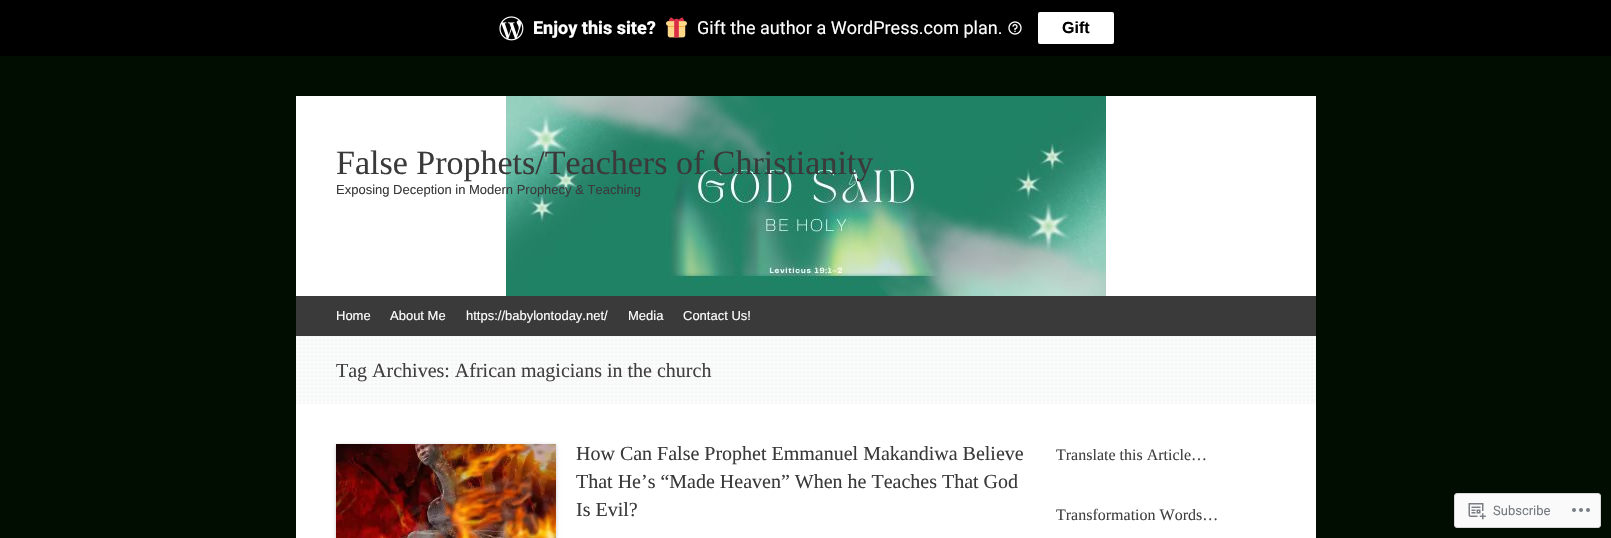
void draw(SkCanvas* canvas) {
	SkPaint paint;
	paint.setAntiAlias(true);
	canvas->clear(0xff010d01);
	paint.setColor(0xff000000);
	canvas->drawRect(SkRect::MakeXYWH(0, 0, 1611, 56), paint);
	canvas->drawImageRect(SkImages::DeferredFromEncodedData(SkData::MakeFromFileName("img1.png")), SkRect::MakeXYWH(499, 16, 25, 25), SkSamplingOptions());
	SkFont f1(fontMgr->matchFamilyStyle("Roboto", SkFontStyle(800, SkFontStyle::kNormal_Width, SkFontStyle::kUpright_Slant)), 18);
	f1.setSubpixel(true);
	paint.setColor(0xffffffff);
	canvas->drawString("Enjoy this site?", 533, 34, f1, paint);
	canvas->drawImageRect(SkImages::DeferredFromEncodedData(SkData::MakeFromFileName("img2.png")), SkRect::MakeXYWH(666, 17, 21, 21), SkSamplingOptions());
	SkFont f2(fontMgr->matchFamilyStyle("Roboto", SkFontStyle::Normal()), 18);
	f2.setSubpixel(true);
	canvas->drawString("Gift the author a WordPress.com plan.", 697, 34, f2, paint);
	canvas->drawImageRect(SkImages::DeferredFromEncodedData(SkData::MakeFromFileName("img3.png")), SkRect::MakeXYWH(1008, 21, 14, 14), SkSamplingOptions());
	canvas->drawRoundRect(SkRect::MakeXYWH(1038, 12, 76, 32), 2, 2, paint);
	SkFont f3(fontMgr->matchFamilyStyle("Arimo", SkFontStyle::Bold()), 16);
	f3.setSubpixel(true);
	paint.setColor(0xff000000);
	canvas->drawString("Gift", 1062, 33, f3, paint);
	paint.setColor(0xffffffff);
	canvas->drawRect(SkRect::MakeXYWH(296, 96, 1020, 442), paint);
	canvas->drawImageRect(SkImages::DeferredFromEncodedData(SkData::MakeFromFileName("img4.png")), SkRect::MakeXYWH(506, 96, 600, 200), SkSamplingOptions());
	SkFont f4(fontMgr->matchFamilyStyle("Liberation Serif", SkFontStyle::Normal()), 34);
	f4.setSubpixel(true);
	paint.setColor(0xff3a3a3a);
	canvas->drawString("False Prophets/Teachers of Christianity", 336, 174, f4, paint);
	SkFont f5(fontMgr->matchFamilyStyle("Liberation Sans", SkFontStyle::Normal()), 13);
	f5.setSubpixel(true);
	canvas->drawString("Exposing Deception in Modern Prophecy & Teaching", 336, 194, f5, paint);
	canvas->drawRect(SkRect::MakeXYWH(296, 296, 1020, 40), paint);
	SkFont f6(fontMgr->matchFamilyStyle("Arimo", SkFontStyle::Normal()), 13);
	f6.setSubpixel(true);
	paint.setColor(0xffffffff);
	canvas->drawString("Home", 336, 320, f6, paint);
	canvas->drawString("About Me", 390, 320, f6, paint);
	canvas->drawString("https://babylontoday.net/", 466, 320, f6, paint);
	canvas->drawString("Media", 628, 320, f6, paint);
	canvas->drawString("Contact Us!", 683, 320, f6, paint);
	canvas->drawImageRect(SkImages::DeferredFromEncodedData(SkData::MakeFromFileName("img5.png")), SkRect::MakeXYWH(296, 336, 1020, 68), SkSamplingOptions());
	SkFont f7(fontMgr->matchFamilyStyle("Liberation Serif", SkFontStyle::Normal()), 20);
	f7.setSubpixel(true);
	paint.setColor(0xff404040);
	canvas->drawString("Tag Archives: African magicians in the church", 336, 377, f7, paint);
	paint.setColor(0x33000000);
	paint.setMaskFilter(SkMaskFilter::MakeBlur(kNormal_SkBlurStyle, 2));
	canvas->drawRect(SkRect::MakeXYWH(336, 445, 220, 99), paint);
	paint.setMaskFilter(nullptr);
	canvas->drawImageRect(SkImages::DeferredFromEncodedData(SkData::MakeFromFileName("img6.png")), SkRect::MakeXYWH(336, 444, 220, 94), SkSamplingOptions());
	paint.setColor(0xff3a3a3a);
	canvas->drawString("How Can False Prophet Emmanuel Makandiwa Believe", 576, 460, f7, paint);
	canvas->drawString("That He’s “Made Heaven” When he Teaches That God", 576, 488, f7, paint);
	canvas->drawString("Is Evil?", 576, 516, f7, paint);
	canvas->save();
	canvas->clipRect(SkRect::MakeXYWH(1056, 404, 260, 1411));
	SkFont f8(fontMgr->matchFamilyStyle("Liberation Serif", SkFontStyle::Normal()), 16);
	f8.setSubpixel(true);
	paint.setColor(0xff404040);
	canvas->drawString("Translate this Article…", 1056, 460, f8, paint);
	canvas->drawString("Transformation Words…", 1056, 520, f8, paint);
	canvas->restore();
	paint.setColor(0xfffafafa);
	canvas->drawRoundRect(SkRect::MakeXYWH(1454.5, 493.5, 146, 34), 2.5, 2.5, paint);
	paint.setStroke(true);
	paint.setStrokeWidth(1);
	paint.setColor(0xffd8d8da);
	canvas->drawRoundRect(SkRect::MakeXYWH(1454.5, 493.5, 146, 34), 2.5, 2.5, paint);
	canvas->drawImageRect(SkImages::DeferredFromEncodedData(SkData::MakeFromFileName("img7.png")), SkRect::MakeXYWH(1468, 503, 18, 17), SkSamplingOptions());
	SkFont f9(fontMgr->matchFamilyStyle("Roboto", SkFontStyle::Normal()), 13);
	f9.setSubpixel(true);
	paint.setStroke(false);
	paint.setColor(0xff767a7f);
	canvas->drawString("Subscribe", 1493, 515, f9, paint);
	canvas->drawImageRect(SkImages::DeferredFromEncodedData(SkData::MakeFromFileName("img8.png")), SkRect::MakeXYWH(1572, 508, 18, 4), SkSamplingOptions());
}
